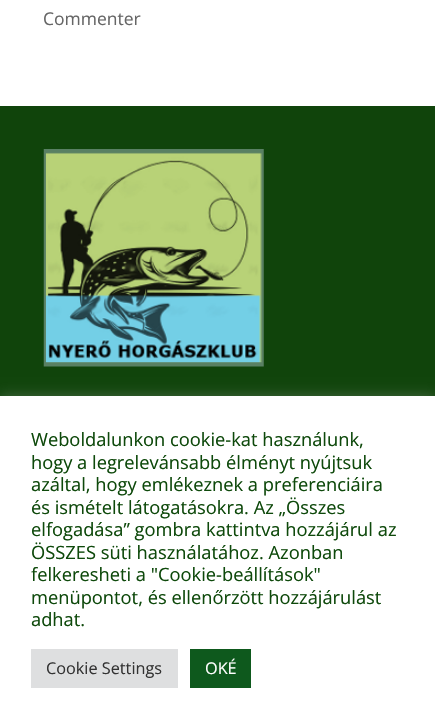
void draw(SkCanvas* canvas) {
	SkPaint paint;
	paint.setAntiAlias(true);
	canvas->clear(0xffffffff);
	SkFont f1(fontMgr->matchFamilyStyle("Open Sans", SkFontStyle::Normal()), 17.5);
	f1.setSubpixel(true);
	paint.setColor(0xff666666);
	canvas->drawString("Commenter", 43, 25, f1, paint);
	paint.setColor(0xff10440b);
	canvas->drawRect(SkRect::MakeXYWH(0, 106, 435, 290), paint);
	canvas->drawImageRect(SkImages::DeferredFromEncodedData(SkData::MakeFromFileName("img1.png")), SkRect::MakeXYWH(43, 149, 221, 218), SkSamplingOptions());
	paint.setColor(0x4dacabab);
	paint.setMaskFilter(SkMaskFilter::MakeBlur(kNormal_SkBlurStyle, 6));
	canvas->drawRect(SkRect::MakeXYWH(0, 395, 435, 329), paint);
	paint.setMaskFilter(nullptr);
	paint.setColor(0xffffffff);
	canvas->drawRect(SkRect::MakeXYWH(0, 396, 435, 329), paint);
	SkFont f2(fontMgr->matchFamilyStyle("Open Sans", SkFontStyle::Normal()), 18.3);
	f2.setSubpixel(true);
	paint.setColor(0xff0e490b);
	canvas->drawString("Weboldalunkon cookie-kat használunk,", 31, 446, f2, paint);
	canvas->drawString("hogy a legrelevánsabb élményt nyújtsuk", 31, 469, f2, paint);
	canvas->drawString("azáltal, hogy emlékeznek a preferenciáira", 31, 491, f2, paint);
	canvas->drawString("és ismételt látogatásokra. Az „Összes", 31, 514, f2, paint);
	canvas->drawString("elfogadása” gombra kattintva hozzájárul az", 31, 536, f2, paint);
	canvas->drawString("ÖSSZES süti használatához. Azonban", 31, 559, f2, paint);
	canvas->drawString("felkeresheti a \"Cookie-beállítások\"", 31, 581, f2, paint);
	canvas->drawString("menüpontot, és ellenőrzött hozzájárulást", 31, 604, f2, paint);
	canvas->drawString("adhat.", 31, 626, f2, paint);
	paint.setColor(0xffdedfe0);
	canvas->drawRect(SkRect::MakeXYWH(31, 649, 147, 39), paint);
	SkFont f3(fontMgr->matchFamilyStyle("Open Sans", SkFontStyle::Normal()), 16.25);
	f3.setSubpixel(true);
	paint.setColor(0xff333333);
	canvas->drawString("Cookie Settings", 46, 674, f3, paint);
	paint.setColor(0xff0e591d);
	canvas->drawRect(SkRect::MakeXYWH(190, 649, 61, 39), paint);
	paint.setColor(0xffffffff);
	canvas->drawString("OKÉ", 205, 674, f3, paint);
}
